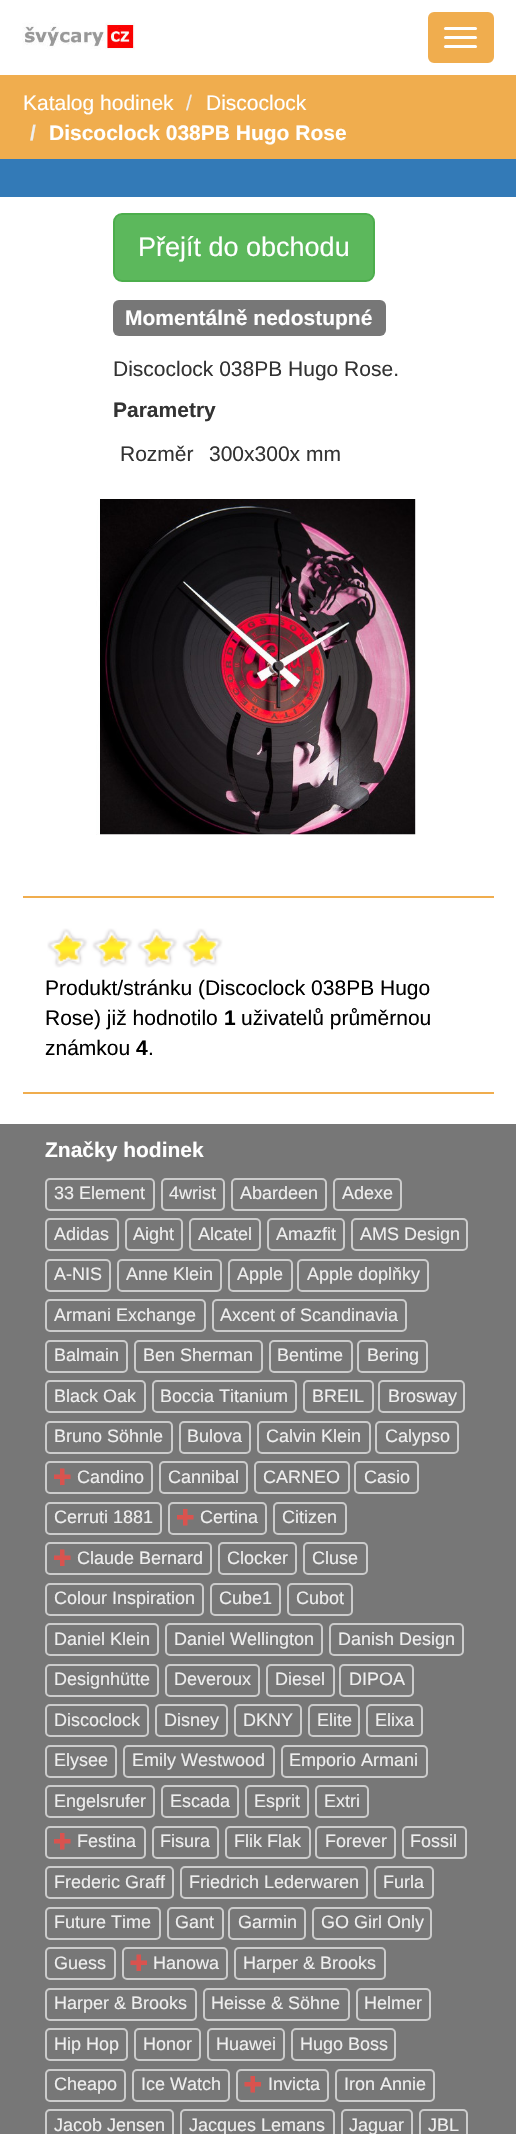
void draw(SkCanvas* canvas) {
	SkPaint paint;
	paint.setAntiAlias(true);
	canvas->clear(0xffffffff);
	paint.setColor(0xff337ab7);
	canvas->drawRect(SkRect::MakeXYWH(0, 159, 516, 38), paint);
	canvas->drawImageRect(SkImages::DeferredFromEncodedData(SkData::MakeFromFileName("img1.png")), SkRect::MakeXYWH(22, 22, 113, 28), SkSamplingOptions());
	paint.setColor(0xfff0ad4e);
	canvas->drawRoundRect(SkRect::MakeXYWH(429, 13, 64, 49), 5, 5, paint);
	paint.setStroke(true);
	paint.setStrokeWidth(2);
	canvas->drawRoundRect(SkRect::MakeXYWH(429, 13, 64, 49), 5, 5, paint);
	paint.setStroke(false);
	paint.setColor(0xffffffff);
	canvas->drawRoundRect(SkRect::MakeXYWH(444, 27, 33, 3), 1.5, 1.5, paint);
	canvas->drawRoundRect(SkRect::MakeXYWH(444, 36, 33, 3), 1.5, 1.5, paint);
	canvas->drawRoundRect(SkRect::MakeXYWH(444, 45, 33, 3), 1.5, 1.5, paint);
	paint.setColor(0xfff0ad4e);
	canvas->drawRect(SkRect::MakeXYWH(0, 75, 516, 84), paint);
	SkFont f1(fontMgr->matchFamilyStyle("Liberation Sans", SkFontStyle::Normal()), 21);
	f1.setSubpixel(true);
	paint.setColor(0xffffffff);
	canvas->drawString("Katalog hodinek", 23, 110, f1, paint);
	paint.setColor(0xffeeeeee);
	canvas->drawString("/", 186, 110, f1, paint);
	paint.setColor(0xffffffff);
	canvas->drawString("Discoclock", 206, 110, f1, paint);
	SkFont f2(fontMgr->matchFamilyStyle("Liberation Sans", SkFontStyle::Bold()), 21);
	f2.setSubpixel(true);
	paint.setColor(0xffeeeeee);
	canvas->drawString("/", 30, 140, f2, paint);
	paint.setColor(0xffffffff);
	canvas->drawString("Discoclock 038PB Hugo Rose", 49, 140, f2, paint);
	paint.setColor(0xff5cb85c);
	canvas->drawRoundRect(SkRect::MakeXYWH(114, 214, 260, 67), 8, 8, paint);
	paint.setStroke(true);
	paint.setColor(0xff4cae4c);
	canvas->drawRoundRect(SkRect::MakeXYWH(114, 214, 260, 67), 8, 8, paint);
	SkFont f3(fontMgr->matchFamilyStyle("Liberation Sans", SkFontStyle::Normal()), 27);
	f3.setSubpixel(true);
	paint.setStroke(false);
	paint.setColor(0xffffffff);
	canvas->drawString("Přejít do obchodu", 138, 256, f3, paint);
	paint.setColor(0xff777777);
	canvas->drawRoundRect(SkRect::MakeXYWH(113, 300, 273, 36), 6, 6, paint);
	paint.setColor(0xffffffff);
	canvas->drawString("Momentálně nedostupné", 125, 325, f2, paint);
	paint.setColor(0xff333333);
	canvas->drawString("Discoclock 038PB Hugo Rose.", 113, 376, f1, paint);
	canvas->drawString("Parametry", 113, 417, f2, paint);
	canvas->drawString("Rozměr", 120, 461, f1, paint);
	canvas->drawString("300x300x mm", 209, 461, f1, paint);
	canvas->drawImageRect(SkImages::DeferredFromEncodedData(SkData::MakeFromFileName("img2.png")), SkRect::MakeXYWH(96, 499, 320, 336), SkSamplingOptions());
	paint.setColor(0xfff0ad4e);
	canvas->drawRect(SkRect::MakeXYWH(23, 896, 471, 2), paint);
	canvas->drawRect(SkRect::MakeXYWH(23, 1092, 471, 2), paint);
	canvas->drawImageRect(SkImages::DeferredFromEncodedData(SkData::MakeFromFileName("img3.png")), SkRect::MakeXYWH(47, 928, 176, 40), SkSamplingOptions());
	paint.setColor(0xff000000);
	canvas->drawString("Produkt/stránku (Discoclock 038PB Hugo", 45, 995, f1, paint);
	canvas->drawString("Rose) již hodnotilo", 45, 1025, f1, paint);
	canvas->drawString("1", 224, 1025, f2, paint);
	canvas->drawString("uživatelů průměrnou", 241, 1025, f1, paint);
	canvas->drawString("známkou", 45, 1055, f1, paint);
	canvas->drawString("4", 136, 1055, f2, paint);
	canvas->drawString(".", 148, 1055, f1, paint);
	paint.setColor(0xff777777);
	canvas->drawRect(SkRect::MakeXYWH(0, 1124, 516, 1010), paint);
	paint.setColor(0xffffffff);
	canvas->drawString("Značky hodinek", 45, 1157, f2, paint);
	paint.setStroke(true);
	paint.setColor(0xffcccccc);
	canvas->drawRoundRect(SkRect::MakeXYWH(46, 1179, 108, 31), 4, 4, paint);
	SkFont f4(fontMgr->matchFamilyStyle("Liberation Sans", SkFontStyle::Normal()), 18);
	f4.setSubpixel(true);
	paint.setStroke(false);
	paint.setColor(0xffeeeeee);
	canvas->drawString("33 Element", 54, 1199, f4, paint);
	paint.setStroke(true);
	paint.setColor(0xffcccccc);
	canvas->drawRoundRect(SkRect::MakeXYWH(162, 1179, 62, 31), 4, 4, paint);
	paint.setStroke(false);
	paint.setColor(0xffeeeeee);
	canvas->drawString("4wrist", 169, 1199, f4, paint);
	paint.setStroke(true);
	paint.setColor(0xffcccccc);
	canvas->drawRoundRect(SkRect::MakeXYWH(232, 1179, 94, 31), 4, 4, paint);
	paint.setStroke(false);
	paint.setColor(0xffeeeeee);
	canvas->drawString("Abardeen", 240, 1199, f4, paint);
	paint.setStroke(true);
	paint.setColor(0xffcccccc);
	canvas->drawRoundRect(SkRect::MakeXYWH(334, 1179, 67, 31), 4, 4, paint);
	paint.setStroke(false);
	paint.setColor(0xffeeeeee);
	canvas->drawString("Adexe", 342, 1199, f4, paint);
	paint.setStroke(true);
	paint.setColor(0xffcccccc);
	canvas->drawRoundRect(SkRect::MakeXYWH(46, 1219, 72, 31), 4, 4, paint);
	paint.setStroke(false);
	paint.setColor(0xffeeeeee);
	canvas->drawString("Adidas", 54, 1240, f4, paint);
	paint.setStroke(true);
	paint.setColor(0xffcccccc);
	canvas->drawRoundRect(SkRect::MakeXYWH(126, 1219, 56, 31), 4, 4, paint);
	paint.setStroke(false);
	paint.setColor(0xffeeeeee);
	canvas->drawString("Aight", 133, 1240, f4, paint);
	paint.setStroke(true);
	paint.setColor(0xffcccccc);
	canvas->drawRoundRect(SkRect::MakeXYWH(190, 1219, 70, 31), 4, 4, paint);
	paint.setStroke(false);
	paint.setColor(0xffeeeeee);
	canvas->drawString("Alcatel", 198, 1240, f4, paint);
	paint.setStroke(true);
	paint.setColor(0xffcccccc);
	canvas->drawRoundRect(SkRect::MakeXYWH(268, 1219, 76, 31), 4, 4, paint);
	paint.setStroke(false);
	paint.setColor(0xffeeeeee);
	canvas->drawString("Amazfit", 276, 1240, f4, paint);
	paint.setStroke(true);
	paint.setColor(0xffcccccc);
	canvas->drawRoundRect(SkRect::MakeXYWH(352, 1219, 115, 31), 4, 4, paint);
	paint.setStroke(false);
	paint.setColor(0xffeeeeee);
	canvas->drawString("AMS Design", 360, 1240, f4, paint);
	paint.setStroke(true);
	paint.setColor(0xffcccccc);
	canvas->drawRoundRect(SkRect::MakeXYWH(46, 1260, 64, 31), 4, 4, paint);
	paint.setStroke(false);
	paint.setColor(0xffeeeeee);
	canvas->drawString("A-NIS", 54, 1280, f4, paint);
	paint.setStroke(true);
	paint.setColor(0xffcccccc);
	canvas->drawRoundRect(SkRect::MakeXYWH(118, 1260, 103, 31), 4, 4, paint);
	paint.setStroke(false);
	paint.setColor(0xffeeeeee);
	canvas->drawString("Anne Klein", 126, 1280, f4, paint);
	paint.setStroke(true);
	paint.setColor(0xffcccccc);
	canvas->drawRoundRect(SkRect::MakeXYWH(229, 1260, 63, 31), 4, 4, paint);
	paint.setStroke(false);
	paint.setColor(0xffeeeeee);
	canvas->drawString("Apple", 237, 1280, f4, paint);
	paint.setStroke(true);
	paint.setColor(0xffcccccc);
	canvas->drawRoundRect(SkRect::MakeXYWH(298, 1260, 130, 31), 4, 4, paint);
	paint.setStroke(false);
	paint.setColor(0xffeeeeee);
	canvas->drawString("Apple doplňky", 307, 1280, f4, paint);
	paint.setStroke(true);
	paint.setColor(0xffcccccc);
	canvas->drawRoundRect(SkRect::MakeXYWH(46, 1300, 159, 31), 4, 4, paint);
	paint.setStroke(false);
	paint.setColor(0xffeeeeee);
	canvas->drawString("Armani Exchange", 54, 1321, f4, paint);
	paint.setStroke(true);
	paint.setColor(0xffcccccc);
	canvas->drawRoundRect(SkRect::MakeXYWH(213, 1300, 193, 31), 4, 4, paint);
	paint.setStroke(false);
	paint.setColor(0xffeeeeee);
	canvas->drawString("Axcent of Scandinavia", 220, 1321, f4, paint);
	paint.setStroke(true);
	paint.setColor(0xffcccccc);
	canvas->drawRoundRect(SkRect::MakeXYWH(46, 1341, 81, 31), 4, 4, paint);
	paint.setStroke(false);
	paint.setColor(0xffeeeeee);
	canvas->drawString("Balmain", 54, 1361, f4, paint);
	paint.setStroke(true);
	paint.setColor(0xffcccccc);
	canvas->drawRoundRect(SkRect::MakeXYWH(135, 1341, 127, 31), 4, 4, paint);
	paint.setStroke(false);
	paint.setColor(0xffeeeeee);
	canvas->drawString("Ben Sherman", 143, 1361, f4, paint);
	paint.setStroke(true);
	paint.setColor(0xffcccccc);
	canvas->drawRoundRect(SkRect::MakeXYWH(270, 1341, 82, 31), 4, 4, paint);
	paint.setStroke(false);
	paint.setColor(0xffeeeeee);
	canvas->drawString("Bentime", 277, 1361, f4, paint);
	paint.setStroke(true);
	paint.setColor(0xffcccccc);
	canvas->drawRoundRect(SkRect::MakeXYWH(358, 1341, 69, 31), 4, 4, paint);
	paint.setStroke(false);
	paint.setColor(0xffeeeeee);
	canvas->drawString("Bering", 367, 1361, f4, paint);
	paint.setStroke(true);
	paint.setColor(0xffcccccc);
	canvas->drawRoundRect(SkRect::MakeXYWH(46, 1381, 99, 31), 4, 4, paint);
	paint.setStroke(false);
	paint.setColor(0xffeeeeee);
	canvas->drawString("Black Oak", 54, 1402, f4, paint);
	paint.setStroke(true);
	paint.setColor(0xffcccccc);
	canvas->drawRoundRect(SkRect::MakeXYWH(153, 1381, 143, 31), 4, 4, paint);
	paint.setStroke(false);
	paint.setColor(0xffeeeeee);
	canvas->drawString("Boccia Titanium", 160, 1402, f4, paint);
	paint.setStroke(true);
	paint.setColor(0xffcccccc);
	canvas->drawRoundRect(SkRect::MakeXYWH(304, 1381, 69, 31), 4, 4, paint);
	paint.setStroke(false);
	paint.setColor(0xffeeeeee);
	canvas->drawString("BREIL", 312, 1402, f4, paint);
	paint.setStroke(true);
	paint.setColor(0xffcccccc);
	canvas->drawRoundRect(SkRect::MakeXYWH(379, 1381, 85, 31), 4, 4, paint);
	paint.setStroke(false);
	paint.setColor(0xffeeeeee);
	canvas->drawString("Brosway", 388, 1402, f4, paint);
	paint.setStroke(true);
	paint.setColor(0xffcccccc);
	canvas->drawRoundRect(SkRect::MakeXYWH(46, 1422, 126, 31), 4, 4, paint);
	paint.setStroke(false);
	paint.setColor(0xffeeeeee);
	canvas->drawString("Bruno Söhnle", 54, 1442, f4, paint);
	paint.setStroke(true);
	paint.setColor(0xffcccccc);
	canvas->drawRoundRect(SkRect::MakeXYWH(180, 1422, 70, 31), 4, 4, paint);
	paint.setStroke(false);
	paint.setColor(0xffeeeeee);
	canvas->drawString("Bulova", 187, 1442, f4, paint);
	paint.setStroke(true);
	paint.setColor(0xffcccccc);
	canvas->drawRoundRect(SkRect::MakeXYWH(258, 1422, 112, 31), 4, 4, paint);
	paint.setStroke(false);
	paint.setColor(0xffeeeeee);
	canvas->drawString("Calvin Klein", 266, 1442, f4, paint);
	paint.setStroke(true);
	paint.setColor(0xffcccccc);
	canvas->drawRoundRect(SkRect::MakeXYWH(376, 1422, 82, 31), 4, 4, paint);
	paint.setStroke(false);
	paint.setColor(0xffeeeeee);
	canvas->drawString("Calypso", 385, 1442, f4, paint);
	paint.setStroke(true);
	paint.setColor(0xffcccccc);
	canvas->drawRoundRect(SkRect::MakeXYWH(46, 1462, 106, 31), 4, 4, paint);
	canvas->drawImageRect(SkImages::DeferredFromEncodedData(SkData::MakeFromFileName("img4.png")), SkRect::MakeXYWH(54, 1468, 17, 17), SkSamplingOptions());
	paint.setStroke(false);
	paint.setColor(0xffeeeeee);
	canvas->drawString("Candino", 77, 1483, f4, paint);
	paint.setStroke(true);
	paint.setColor(0xffcccccc);
	canvas->drawRoundRect(SkRect::MakeXYWH(160, 1462, 87, 31), 4, 4, paint);
	paint.setStroke(false);
	paint.setColor(0xffeeeeee);
	canvas->drawString("Cannibal", 168, 1483, f4, paint);
	paint.setStroke(true);
	paint.setColor(0xffcccccc);
	canvas->drawRoundRect(SkRect::MakeXYWH(255, 1462, 94, 31), 4, 4, paint);
	paint.setStroke(false);
	paint.setColor(0xffeeeeee);
	canvas->drawString("CARNEO", 263, 1483, f4, paint);
	paint.setStroke(true);
	paint.setColor(0xffcccccc);
	canvas->drawRoundRect(SkRect::MakeXYWH(355, 1462, 63, 31), 4, 4, paint);
	paint.setStroke(false);
	paint.setColor(0xffeeeeee);
	canvas->drawString("Casio", 364, 1483, f4, paint);
	paint.setStroke(true);
	paint.setColor(0xffcccccc);
	canvas->drawRoundRect(SkRect::MakeXYWH(46, 1503, 115, 31), 4, 4, paint);
	paint.setStroke(false);
	paint.setColor(0xffeeeeee);
	canvas->drawString("Cerruti 1881", 54, 1523, f4, paint);
	paint.setStroke(true);
	paint.setColor(0xffcccccc);
	canvas->drawRoundRect(SkRect::MakeXYWH(169, 1503, 97, 31), 4, 4, paint);
	canvas->drawImageRect(SkImages::DeferredFromEncodedData(SkData::MakeFromFileName("img5.png")), SkRect::MakeXYWH(177, 1509, 17, 17), SkSamplingOptions());
	paint.setStroke(false);
	paint.setColor(0xffeeeeee);
	canvas->drawString("Certina", 200, 1523, f4, paint);
	paint.setStroke(true);
	paint.setColor(0xffcccccc);
	canvas->drawRoundRect(SkRect::MakeXYWH(274, 1503, 72, 31), 4, 4, paint);
	paint.setStroke(false);
	paint.setColor(0xffeeeeee);
	canvas->drawString("Citizen", 282, 1523, f4, paint);
	paint.setStroke(true);
	paint.setColor(0xffcccccc);
	canvas->drawRoundRect(SkRect::MakeXYWH(46, 1543, 165, 31), 4, 4, paint);
	canvas->drawImageRect(SkImages::DeferredFromEncodedData(SkData::MakeFromFileName("img4.png")), SkRect::MakeXYWH(54, 1549, 17, 17), SkSamplingOptions());
	paint.setStroke(false);
	paint.setColor(0xffeeeeee);
	canvas->drawString("Claude Bernard", 77, 1564, f4, paint);
	paint.setStroke(true);
	paint.setColor(0xffcccccc);
	canvas->drawRoundRect(SkRect::MakeXYWH(219, 1543, 77, 31), 4, 4, paint);
	paint.setStroke(false);
	paint.setColor(0xffeeeeee);
	canvas->drawString("Clocker", 227, 1564, f4, paint);
	paint.setStroke(true);
	paint.setColor(0xffcccccc);
	canvas->drawRoundRect(SkRect::MakeXYWH(304, 1543, 63, 31), 4, 4, paint);
	paint.setStroke(false);
	paint.setColor(0xffeeeeee);
	canvas->drawString("Cluse", 312, 1564, f4, paint);
	paint.setStroke(true);
	paint.setColor(0xffcccccc);
	canvas->drawRoundRect(SkRect::MakeXYWH(46, 1584, 157, 31), 4, 4, paint);
	paint.setStroke(false);
	paint.setColor(0xffeeeeee);
	canvas->drawString("Colour Inspiration", 54, 1604, f4, paint);
	paint.setStroke(true);
	paint.setColor(0xffcccccc);
	canvas->drawRoundRect(SkRect::MakeXYWH(211, 1584, 69, 31), 4, 4, paint);
	paint.setStroke(false);
	paint.setColor(0xffeeeeee);
	canvas->drawString("Cube1", 219, 1604, f4, paint);
	paint.setStroke(true);
	paint.setColor(0xffcccccc);
	canvas->drawRoundRect(SkRect::MakeXYWH(288, 1584, 64, 31), 4, 4, paint);
	paint.setStroke(false);
	paint.setColor(0xffeeeeee);
	canvas->drawString("Cubot", 296, 1604, f4, paint);
	paint.setStroke(true);
	paint.setColor(0xffcccccc);
	canvas->drawRoundRect(SkRect::MakeXYWH(46, 1624, 112, 31), 4, 4, paint);
	paint.setStroke(false);
	paint.setColor(0xffeeeeee);
	canvas->drawString("Daniel Klein", 54, 1645, f4, paint);
	paint.setStroke(true);
	paint.setColor(0xffcccccc);
	canvas->drawRoundRect(SkRect::MakeXYWH(166, 1624, 156, 31), 4, 4, paint);
	paint.setStroke(false);
	paint.setColor(0xffeeeeee);
	canvas->drawString("Daniel Wellington", 174, 1645, f4, paint);
	paint.setStroke(true);
	paint.setColor(0xffcccccc);
	canvas->drawRoundRect(SkRect::MakeXYWH(330, 1624, 133, 31), 4, 4, paint);
	paint.setStroke(false);
	paint.setColor(0xffeeeeee);
	canvas->drawString("Danish Design", 338, 1645, f4, paint);
	paint.setStroke(true);
	paint.setColor(0xffcccccc);
	canvas->drawRoundRect(SkRect::MakeXYWH(46, 1665, 112, 31), 4, 4, paint);
	paint.setStroke(false);
	paint.setColor(0xffeeeeee);
	canvas->drawString("Designhütte", 54, 1685, f4, paint);
	paint.setStroke(true);
	paint.setColor(0xffcccccc);
	canvas->drawRoundRect(SkRect::MakeXYWH(166, 1665, 93, 31), 4, 4, paint);
	paint.setStroke(false);
	paint.setColor(0xffeeeeee);
	canvas->drawString("Deveroux", 174, 1685, f4, paint);
	paint.setStroke(true);
	paint.setColor(0xffcccccc);
	canvas->drawRoundRect(SkRect::MakeXYWH(267, 1665, 67, 31), 4, 4, paint);
	paint.setStroke(false);
	paint.setColor(0xffeeeeee);
	canvas->drawString("Diesel", 275, 1685, f4, paint);
	paint.setStroke(true);
	paint.setColor(0xffcccccc);
	canvas->drawRoundRect(SkRect::MakeXYWH(340, 1665, 73, 31), 4, 4, paint);
	paint.setStroke(false);
	paint.setColor(0xffeeeeee);
	canvas->drawString("DIPOA", 349, 1685, f4, paint);
	paint.setStroke(true);
	paint.setColor(0xffcccccc);
	canvas->drawRoundRect(SkRect::MakeXYWH(46, 1705, 102, 31), 4, 4, paint);
	paint.setStroke(false);
	paint.setColor(0xffeeeeee);
	canvas->drawString("Discoclock", 54, 1726, f4, paint);
	paint.setStroke(true);
	paint.setColor(0xffcccccc);
	canvas->drawRoundRect(SkRect::MakeXYWH(156, 1705, 71, 31), 4, 4, paint);
	paint.setStroke(false);
	paint.setColor(0xffeeeeee);
	canvas->drawString("Disney", 164, 1726, f4, paint);
	paint.setStroke(true);
	paint.setColor(0xffcccccc);
	canvas->drawRoundRect(SkRect::MakeXYWH(235, 1705, 66, 31), 4, 4, paint);
	paint.setStroke(false);
	paint.setColor(0xffeeeeee);
	canvas->drawString("DKNY", 243, 1726, f4, paint);
	paint.setStroke(true);
	paint.setColor(0xffcccccc);
	canvas->drawRoundRect(SkRect::MakeXYWH(309, 1705, 50, 31), 4, 4, paint);
	paint.setStroke(false);
	paint.setColor(0xffeeeeee);
	canvas->drawString("Elite", 317, 1726, f4, paint);
	paint.setStroke(true);
	paint.setColor(0xffcccccc);
	canvas->drawRoundRect(SkRect::MakeXYWH(367, 1705, 55, 31), 4, 4, paint);
	paint.setStroke(false);
	paint.setColor(0xffeeeeee);
	canvas->drawString("Elixa", 375, 1726, f4, paint);
	paint.setStroke(true);
	paint.setColor(0xffcccccc);
	canvas->drawRoundRect(SkRect::MakeXYWH(46, 1746, 70, 31), 4, 4, paint);
	paint.setStroke(false);
	paint.setColor(0xffeeeeee);
	canvas->drawString("Elysee", 54, 1766, f4, paint);
	paint.setStroke(true);
	paint.setColor(0xffcccccc);
	canvas->drawRoundRect(SkRect::MakeXYWH(124, 1746, 150, 31), 4, 4, paint);
	paint.setStroke(false);
	paint.setColor(0xffeeeeee);
	canvas->drawString("Emily Westwood", 132, 1766, f4, paint);
	paint.setStroke(true);
	paint.setColor(0xffcccccc);
	canvas->drawRoundRect(SkRect::MakeXYWH(282, 1746, 145, 31), 4, 4, paint);
	paint.setStroke(false);
	paint.setColor(0xffeeeeee);
	canvas->drawString("Emporio Armani", 289, 1766, f4, paint);
	paint.setStroke(true);
	paint.setColor(0xffcccccc);
	canvas->drawRoundRect(SkRect::MakeXYWH(46, 1786, 108, 31), 4, 4, paint);
	paint.setStroke(false);
	paint.setColor(0xffeeeeee);
	canvas->drawString("Engelsrufer", 54, 1807, f4, paint);
	paint.setStroke(true);
	paint.setColor(0xffcccccc);
	canvas->drawRoundRect(SkRect::MakeXYWH(162, 1786, 76, 31), 4, 4, paint);
	paint.setStroke(false);
	paint.setColor(0xffeeeeee);
	canvas->drawString("Escada", 170, 1807, f4, paint);
	paint.setStroke(true);
	paint.setColor(0xffcccccc);
	canvas->drawRoundRect(SkRect::MakeXYWH(246, 1786, 62, 31), 4, 4, paint);
	paint.setStroke(false);
	paint.setColor(0xffeeeeee);
	canvas->drawString("Esprit", 254, 1807, f4, paint);
	paint.setStroke(true);
	paint.setColor(0xffcccccc);
	canvas->drawRoundRect(SkRect::MakeXYWH(316, 1786, 52, 31), 4, 4, paint);
	paint.setStroke(false);
	paint.setColor(0xffeeeeee);
	canvas->drawString("Extri", 324, 1807, f4, paint);
	paint.setStroke(true);
	paint.setColor(0xffcccccc);
	canvas->drawRoundRect(SkRect::MakeXYWH(46, 1827, 99, 31), 4, 4, paint);
	canvas->drawImageRect(SkImages::DeferredFromEncodedData(SkData::MakeFromFileName("img5.png")), SkRect::MakeXYWH(54, 1833, 17, 17), SkSamplingOptions());
	paint.setStroke(false);
	paint.setColor(0xffeeeeee);
	canvas->drawString("Festina", 77, 1847, f4, paint);
	paint.setStroke(true);
	paint.setColor(0xffcccccc);
	canvas->drawRoundRect(SkRect::MakeXYWH(153, 1827, 65, 31), 4, 4, paint);
	paint.setStroke(false);
	paint.setColor(0xffeeeeee);
	canvas->drawString("Fisura", 160, 1847, f4, paint);
	paint.setStroke(true);
	paint.setColor(0xffcccccc);
	canvas->drawRoundRect(SkRect::MakeXYWH(226, 1827, 84, 31), 4, 4, paint);
	paint.setStroke(false);
	paint.setColor(0xffeeeeee);
	canvas->drawString("Flik Flak", 234, 1847, f4, paint);
	paint.setStroke(true);
	paint.setColor(0xffcccccc);
	canvas->drawRoundRect(SkRect::MakeXYWH(316, 1827, 79, 31), 4, 4, paint);
	paint.setStroke(false);
	paint.setColor(0xffeeeeee);
	canvas->drawString("Forever", 325, 1847, f4, paint);
	paint.setStroke(true);
	paint.setColor(0xffcccccc);
	canvas->drawRoundRect(SkRect::MakeXYWH(403, 1827, 63, 31), 4, 4, paint);
	paint.setStroke(false);
	paint.setColor(0xffeeeeee);
	canvas->drawString("Fossil", 410, 1847, f4, paint);
	paint.setStroke(true);
	paint.setColor(0xffcccccc);
	canvas->drawRoundRect(SkRect::MakeXYWH(46, 1867, 127, 31), 4, 4, paint);
	paint.setStroke(false);
	paint.setColor(0xffeeeeee);
	canvas->drawString("Frederic Graff", 54, 1888, f4, paint);
	paint.setStroke(true);
	paint.setColor(0xffcccccc);
	canvas->drawRoundRect(SkRect::MakeXYWH(181, 1867, 186, 31), 4, 4, paint);
	paint.setStroke(false);
	paint.setColor(0xffeeeeee);
	canvas->drawString("Friedrich Lederwaren", 189, 1888, f4, paint);
	paint.setStroke(true);
	paint.setColor(0xffcccccc);
	canvas->drawRoundRect(SkRect::MakeXYWH(375, 1867, 58, 31), 4, 4, paint);
	paint.setStroke(false);
	paint.setColor(0xffeeeeee);
	canvas->drawString("Furla", 383, 1888, f4, paint);
	paint.setStroke(true);
	paint.setColor(0xffcccccc);
	canvas->drawRoundRect(SkRect::MakeXYWH(46, 1908, 114, 31), 4, 4, paint);
	paint.setStroke(false);
	paint.setColor(0xffeeeeee);
	canvas->drawString("Future Time", 54, 1928, f4, paint);
	paint.setStroke(true);
	paint.setColor(0xffcccccc);
	canvas->drawRoundRect(SkRect::MakeXYWH(168, 1908, 55, 31), 4, 4, paint);
	paint.setStroke(false);
	paint.setColor(0xffeeeeee);
	canvas->drawString("Gant", 175, 1928, f4, paint);
	paint.setStroke(true);
	paint.setColor(0xffcccccc);
	canvas->drawRoundRect(SkRect::MakeXYWH(229, 1908, 76, 31), 4, 4, paint);
	paint.setStroke(false);
	paint.setColor(0xffeeeeee);
	canvas->drawString("Garmin", 238, 1928, f4, paint);
	paint.setStroke(true);
	paint.setColor(0xffcccccc);
	canvas->drawRoundRect(SkRect::MakeXYWH(313, 1908, 118, 31), 4, 4, paint);
	paint.setStroke(false);
	paint.setColor(0xffeeeeee);
	canvas->drawString("GO Girl Only", 321, 1928, f4, paint);
	paint.setStroke(true);
	paint.setColor(0xffcccccc);
	canvas->drawRoundRect(SkRect::MakeXYWH(46, 1948, 69, 31), 4, 4, paint);
	paint.setStroke(false);
	paint.setColor(0xffeeeeee);
	canvas->drawString("Guess", 54, 1969, f4, paint);
	paint.setStroke(true);
	paint.setColor(0xffcccccc);
	canvas->drawRoundRect(SkRect::MakeXYWH(123, 1948, 104, 31), 4, 4, paint);
	canvas->drawImageRect(SkImages::DeferredFromEncodedData(SkData::MakeFromFileName("img6.png")), SkRect::MakeXYWH(130, 1954, 17, 17), SkSamplingOptions());
	paint.setStroke(false);
	paint.setColor(0xffeeeeee);
	canvas->drawString("Hanowa", 153, 1969, f4, paint);
	paint.setStroke(true);
	paint.setColor(0xffcccccc);
	canvas->drawRoundRect(SkRect::MakeXYWH(235, 1948, 150, 31), 4, 4, paint);
	paint.setStroke(false);
	paint.setColor(0xffeeeeee);
	canvas->drawString("Harper & Brooks", 243, 1969, f4, paint);
	paint.setStroke(true);
	paint.setColor(0xffcccccc);
	canvas->drawRoundRect(SkRect::MakeXYWH(46, 1989, 150, 31), 4, 4, paint);
	paint.setStroke(false);
	paint.setColor(0xffeeeeee);
	canvas->drawString("Harper & Brooks", 54, 2009, f4, paint);
	paint.setStroke(true);
	paint.setColor(0xffcccccc);
	canvas->drawRoundRect(SkRect::MakeXYWH(204, 1989, 145, 31), 4, 4, paint);
	paint.setStroke(false);
	paint.setColor(0xffeeeeee);
	canvas->drawString("Heisse & Söhne", 211, 2009, f4, paint);
	paint.setStroke(true);
	paint.setColor(0xffcccccc);
	canvas->drawRoundRect(SkRect::MakeXYWH(357, 1989, 73, 31), 4, 4, paint);
	paint.setStroke(false);
	paint.setColor(0xffeeeeee);
	canvas->drawString("Helmer", 364, 2009, f4, paint);
	paint.setStroke(true);
	paint.setColor(0xffcccccc);
	canvas->drawRoundRect(SkRect::MakeXYWH(46, 2029, 81, 31), 4, 4, paint);
	paint.setStroke(false);
	paint.setColor(0xffeeeeee);
	canvas->drawString("Hip Hop", 54, 2050, f4, paint);
	paint.setStroke(true);
	paint.setColor(0xffcccccc);
	canvas->drawRoundRect(SkRect::MakeXYWH(135, 2029, 65, 31), 4, 4, paint);
	paint.setStroke(false);
	paint.setColor(0xffeeeeee);
	canvas->drawString("Honor", 143, 2050, f4, paint);
	paint.setStroke(true);
	paint.setColor(0xffcccccc);
	canvas->drawRoundRect(SkRect::MakeXYWH(208, 2029, 76, 31), 4, 4, paint);
	paint.setStroke(false);
	paint.setColor(0xffeeeeee);
	canvas->drawString("Huawei", 216, 2050, f4, paint);
	paint.setStroke(true);
	paint.setColor(0xffcccccc);
	canvas->drawRoundRect(SkRect::MakeXYWH(292, 2029, 103, 31), 4, 4, paint);
	paint.setStroke(false);
	paint.setColor(0xffeeeeee);
	canvas->drawString("Hugo Boss", 300, 2050, f4, paint);
	paint.setStroke(true);
	paint.setColor(0xffcccccc);
	canvas->drawRoundRect(SkRect::MakeXYWH(46, 2070, 79, 31), 4, 4, paint);
	paint.setStroke(false);
	paint.setColor(0xffeeeeee);
	canvas->drawString("Cheapo", 54, 2090, f4, paint);
	paint.setStroke(true);
	paint.setColor(0xffcccccc);
	canvas->drawRoundRect(SkRect::MakeXYWH(133, 2070, 96, 31), 4, 4, paint);
	paint.setStroke(false);
	paint.setColor(0xffeeeeee);
	canvas->drawString("Ice Watch", 141, 2090, f4, paint);
	paint.setStroke(true);
	paint.setColor(0xffcccccc);
	canvas->drawRoundRect(SkRect::MakeXYWH(237, 2070, 91, 31), 4, 4, paint);
	canvas->drawImageRect(SkImages::DeferredFromEncodedData(SkData::MakeFromFileName("img7.png")), SkRect::MakeXYWH(244, 2076, 17, 17), SkSamplingOptions());
	paint.setStroke(false);
	paint.setColor(0xffeeeeee);
	canvas->drawString("Invicta", 268, 2090, f4, paint);
	paint.setStroke(true);
	paint.setColor(0xffcccccc);
	canvas->drawRoundRect(SkRect::MakeXYWH(336, 2070, 98, 31), 4, 4, paint);
	paint.setStroke(false);
	paint.setColor(0xffeeeeee);
	canvas->drawString("Iron Annie", 344, 2090, f4, paint);
	paint.setStroke(true);
	paint.setColor(0xffcccccc);
	canvas->drawRoundRect(SkRect::MakeXYWH(46, 2110, 127, 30), 4, 4, paint);
	paint.setStroke(false);
	paint.setColor(0xffeeeeee);
	canvas->drawString("Jacob Jensen", 54, 2131, f4, paint);
	paint.setStroke(true);
	paint.setColor(0xffcccccc);
	canvas->drawRoundRect(SkRect::MakeXYWH(181, 2110, 153, 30), 4, 4, paint);
	paint.setStroke(false);
	paint.setColor(0xffeeeeee);
	canvas->drawString("Jacques Lemans", 189, 2131, f4, paint);
	paint.setStroke(true);
	paint.setColor(0xffcccccc);
	canvas->drawRoundRect(SkRect::MakeXYWH(342, 2110, 70, 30), 4, 4, paint);
	paint.setStroke(false);
	paint.setColor(0xffeeeeee);
	canvas->drawString("Jaguar", 349, 2131, f4, paint);
	paint.setStroke(true);
	paint.setColor(0xffcccccc);
	canvas->drawRoundRect(SkRect::MakeXYWH(420, 2110, 47, 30), 4, 4, paint);
	paint.setStroke(false);
	paint.setColor(0xffeeeeee);
	canvas->drawString("JBL", 428, 2131, f4, paint);
}
